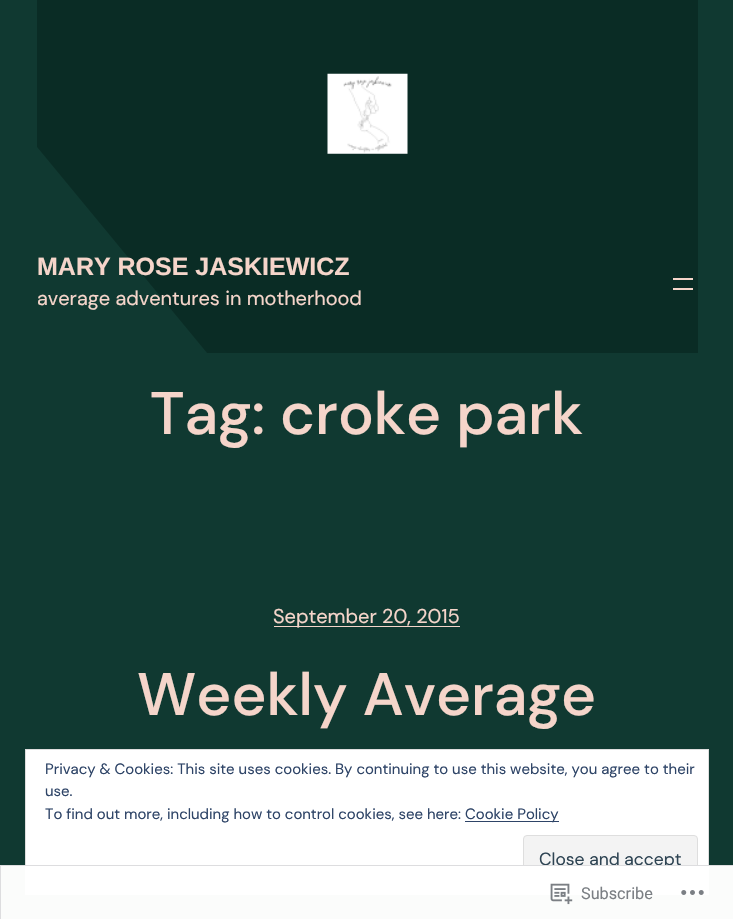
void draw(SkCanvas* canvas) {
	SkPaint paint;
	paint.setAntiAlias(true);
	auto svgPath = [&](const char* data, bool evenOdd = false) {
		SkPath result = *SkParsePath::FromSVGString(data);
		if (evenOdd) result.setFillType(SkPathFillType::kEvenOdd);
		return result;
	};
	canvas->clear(0xff103931);
	paint.setColor(0xff0a2c25);
	canvas->drawPath(svgPath("M37 0V147L207 353H698V0Z"), paint);
	canvas->drawImageRect(SkImages::DeferredFromEncodedData(SkData::MakeFromFileName("img1.png")), SkRect::MakeXYWH(327, 73, 81, 81), SkSamplingOptions());
	SkFont f1(fontMgr->matchFamilyStyle("Liberation Sans", SkFontStyle::Bold()), 25);
	f1.setSubpixel(true);
	paint.setColor(0xfff5d5ca);
	canvas->drawString("MARY ROSE JASKIEWICZ", 37, 275, f1, paint);
	SkFont f2(fontMgr->matchFamilyStyle("DM Sans", SkFontStyle::Normal()), 20);
	f2.setSubpixel(true);
	canvas->drawString("average adventures in motherhood", 37, 305, f2, paint);
	canvas->drawRect(SkRect::MakeXYWH(673, 278, 20, 2), paint);
	canvas->drawRect(SkRect::MakeXYWH(673, 288, 20, 2), paint);
	SkFont f3(fontMgr->matchFamilyStyle("DM Sans", SkFontStyle(500, SkFontStyle::kNormal_Width, SkFontStyle::kUpright_Slant)), 60);
	f3.setSubpixel(true);
	canvas->drawString("Tag: croke park", 150, 434, f3, paint);
	canvas->drawRect(SkRect::MakeXYWH(274, 626, 186, 1), paint);
	canvas->drawString("September 20, 2015", 273, 623, f2, paint);
	canvas->drawString("Weekly Average", 137, 715, f3, paint);
	paint.setColor(0xffffffff);
	canvas->drawRect(SkRect::MakeXYWH(25.5, 749.5, 683, 145), paint);
	paint.setStroke(true);
	paint.setStrokeWidth(1);
	paint.setColor(0xffdedede);
	canvas->drawRect(SkRect::MakeXYWH(25.5, 749.5, 683, 145), paint);
	SkFont f4(fontMgr->matchFamilyStyle("DM Sans", SkFontStyle::Normal()), 15);
	f4.setSubpixel(true);
	paint.setStroke(false);
	paint.setColor(0xff2e4467);
	canvas->drawString("Privacy & Cookies: This site uses cookies. By continuing to use this website, you agree to their", 45, 774, f4, paint);
	canvas->drawString("use.", 45, 796, f4, paint);
	canvas->drawString("To find out more, including how to control cookies, see here:", 45, 819, f4, paint);
	canvas->drawRect(SkRect::MakeXYWH(465, 821, 94, 1), paint);
	canvas->drawString("Cookie Policy", 465, 819, f4, paint);
	paint.setColor(0xfff3f3f3);
	canvas->drawRoundRect(SkRect::MakeXYWH(523.5, 835.5, 174, 48), 3.5, 3.5, paint);
	paint.setStroke(true);
	paint.setColor(0xffdedede);
	canvas->drawRoundRect(SkRect::MakeXYWH(523.5, 835.5, 174, 48), 3.5, 3.5, paint);
	SkFont f5(fontMgr->matchFamilyStyle("DM Sans", SkFontStyle::Normal()), 17.5);
	f5.setSubpixel(true);
	paint.setStroke(false);
	paint.setColor(0xff2e4453);
	canvas->drawString("Close and accept", 539, 865, f5, paint);
	paint.setColor(0xfaffffff);
	canvas->drawRect(SkRect::MakeXYWH(0, 865, 733, 54), paint);
	paint.setStroke(true);
	paint.setColor(0xfadcdcde);
	canvas->drawRect(SkRect::MakeXYWH(0.5, 865.5, 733, 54), paint);
	canvas->drawImageRect(SkImages::DeferredFromEncodedData(SkData::MakeFromFileName("img2.png")), SkRect::MakeXYWH(550, 883, 23, 22), SkSamplingOptions());
	SkFont f6(fontMgr->matchFamilyStyle("Roboto", SkFontStyle::Normal()), 16.25);
	f6.setSubpixel(true);
	paint.setStroke(false);
	paint.setColor(0xff7b7f84);
	canvas->drawString("Subscribe", 581, 899, f6, paint);
	canvas->drawImageRect(SkImages::DeferredFromEncodedData(SkData::MakeFromFileName("img3.png")), SkRect::MakeXYWH(681, 890, 23, 5), SkSamplingOptions());
}
